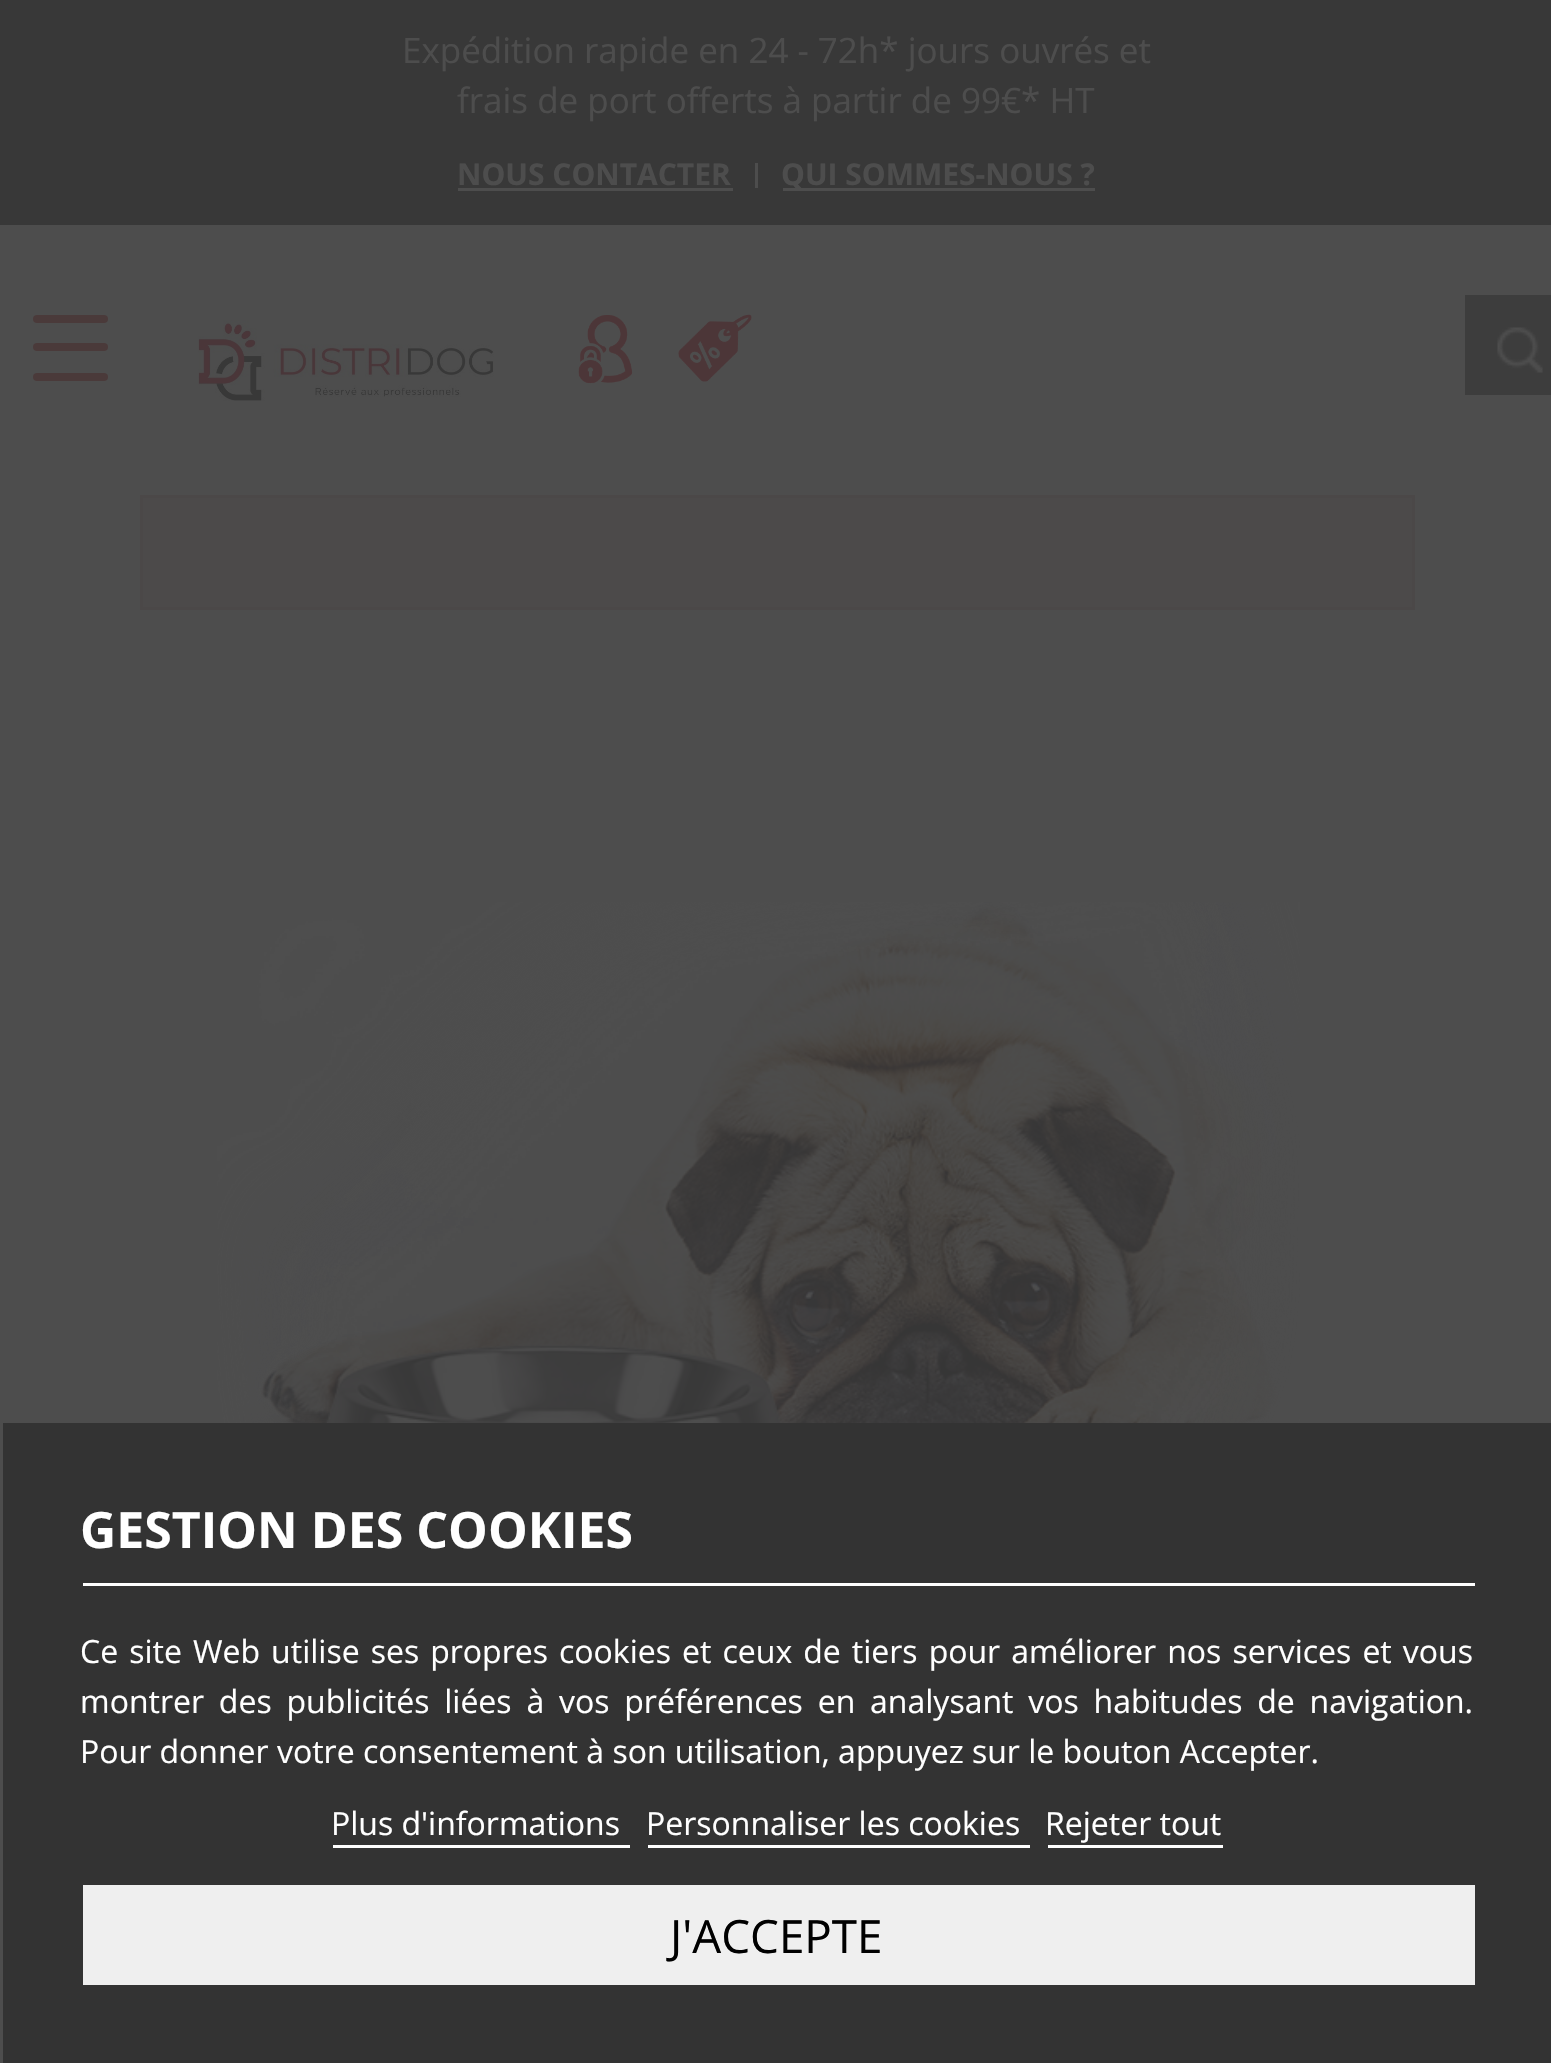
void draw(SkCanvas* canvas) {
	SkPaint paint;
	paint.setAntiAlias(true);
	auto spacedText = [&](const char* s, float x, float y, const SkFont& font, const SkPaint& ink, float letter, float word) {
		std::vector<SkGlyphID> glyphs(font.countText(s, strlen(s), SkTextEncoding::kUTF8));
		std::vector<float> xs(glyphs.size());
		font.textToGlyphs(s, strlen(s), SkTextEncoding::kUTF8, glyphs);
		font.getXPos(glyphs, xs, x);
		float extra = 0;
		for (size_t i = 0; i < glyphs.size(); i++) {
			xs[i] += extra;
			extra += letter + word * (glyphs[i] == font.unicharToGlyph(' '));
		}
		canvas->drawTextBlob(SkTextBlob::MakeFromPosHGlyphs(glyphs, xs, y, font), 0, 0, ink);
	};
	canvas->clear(0xff4d4d4d);
	paint.setColor(0xff383838);
	canvas->drawRect(SkRect::MakeXYWH(0, 0, 1551, 225), paint);
	SkFont f1(fontMgr->matchFamilyStyle("Open Sans", SkFontStyle::Normal()), 35);
	f1.setSubpixel(true);
	paint.setColor(0xff4d4d4d);
	canvas->drawString("Expédition rapide en 24 - 72h* jours ouvrés et", 402, 63, f1, paint);
	canvas->drawString("frais de port offerts à partir de 99€* HT", 457, 113, f1, paint);
	SkFont f2(fontMgr->matchFamilyStyle("Open Sans", SkFontStyle::Bold()), 30);
	f2.setSubpixel(true);
	canvas->drawString("NOUS CONTACTER", 457, 185, f2, paint);
	canvas->drawRect(SkRect::MakeXYWH(458, 188, 275, 3), paint);
	canvas->drawRect(SkRect::MakeXYWH(755, 163, 3, 25), paint);
	canvas->drawRect(SkRect::MakeXYWH(783, 188, 312, 3), paint);
	canvas->drawString("QUI SOMMES-NOUS ?", 781, 185, f2, paint);
	paint.setColor(0xff4a3a3a);
	canvas->drawRoundRect(SkRect::MakeXYWH(33, 315, 75, 8), 4, 4, paint);
	canvas->drawRoundRect(SkRect::MakeXYWH(33, 343, 75, 8), 4, 4, paint);
	canvas->drawRoundRect(SkRect::MakeXYWH(33, 373, 75, 8), 4, 4, paint);
	canvas->drawImageRect(SkImages::DeferredFromEncodedData(SkData::MakeFromFileName("img1.png")), SkRect::MakeXYWH(198, 320, 296, 81), SkSamplingOptions());
	canvas->drawImageRect(SkImages::DeferredFromEncodedData(SkData::MakeFromFileName("img2.png")), SkRect::MakeXYWH(578, 315, 55, 69), SkSamplingOptions());
	canvas->drawImageRect(SkImages::DeferredFromEncodedData(SkData::MakeFromFileName("img3.png")), SkRect::MakeXYWH(678, 314, 74, 68), SkSamplingOptions());
	paint.setColor(0xff3d3d3d);
	canvas->drawRect(SkRect::MakeXYWH(1465, 295, 86, 100), paint);
	canvas->drawImageRect(SkImages::DeferredFromEncodedData(SkData::MakeFromFileName("img4.png")), SkRect::MakeXYWH(1497, 327, 46, 46), SkSamplingOptions());
	paint.setColor(0xff4c4a4a);
	canvas->drawRect(SkRect::MakeXYWH(141.5, 496.5, 1272, 112), paint);
	paint.setStroke(true);
	paint.setStrokeWidth(3);
	paint.setColor(0xff4b4848);
	canvas->drawRect(SkRect::MakeXYWH(141.5, 496.5, 1272, 112), paint);
	canvas->drawImageRect(SkImages::DeferredFromEncodedData(SkData::MakeFromFileName("img5.png")), SkRect::MakeXYWH(217, 902, 1083, 521), SkSamplingOptions());
	paint.setStroke(false);
	paint.setColor(0xff333333);
	canvas->drawRect(SkRect::MakeXYWH(3, 1423, 1548, 640), paint);
	paint.setColor(0xffffffff);
	canvas->drawRect(SkRect::MakeXYWH(83, 1583, 1392, 3), paint);
	SkFont f3(fontMgr->matchFamilyStyle("Open Sans", SkFontStyle::Bold()), 50);
	f3.setSubpixel(true);
	canvas->drawString("GESTION DES COOKIES", 80, 1548, f3, paint);
	SkFont f4(fontMgr->matchFamilyStyle("Open Sans", SkFontStyle::Normal()), 32);
	f4.setSubpixel(true);
	spacedText("Ce site Web utilise ses propres cookies et ceux de tiers pour améliorer nos services et vous", 80, 1663, f4, paint, 0, 2.75);
	spacedText("montrer des publicités liées à vos préférences en analysant vos habitudes de navigation.", 80, 1713, f4, paint, 0, 6.5);
	canvas->drawString("Pour donner votre consentement à son utilisation, appuyez sur le bouton Accepter.", 80, 1763, f4, paint);
	canvas->drawString("Plus d'informations", 331, 1835, f4, paint);
	canvas->drawRect(SkRect::MakeXYWH(333, 1845, 297, 3), paint);
	canvas->drawString("Personnaliser les cookies", 646, 1835, f4, paint);
	canvas->drawRect(SkRect::MakeXYWH(648, 1845, 382, 3), paint);
	canvas->drawString("Rejeter tout", 1045, 1835, f4, paint);
	canvas->drawRect(SkRect::MakeXYWH(1048, 1845, 175, 3), paint);
	paint.setColor(0xffefefef);
	canvas->drawRect(SkRect::MakeXYWH(83, 1885, 1392, 100), paint);
	SkFont f5(fontMgr->matchFamilyStyle("Open Sans", SkFontStyle::Normal()), 45.75);
	f5.setSubpixel(true);
	paint.setColor(0xff000000);
	canvas->drawString("J'ACCEPTE", 670, 1953, f5, paint);
}
